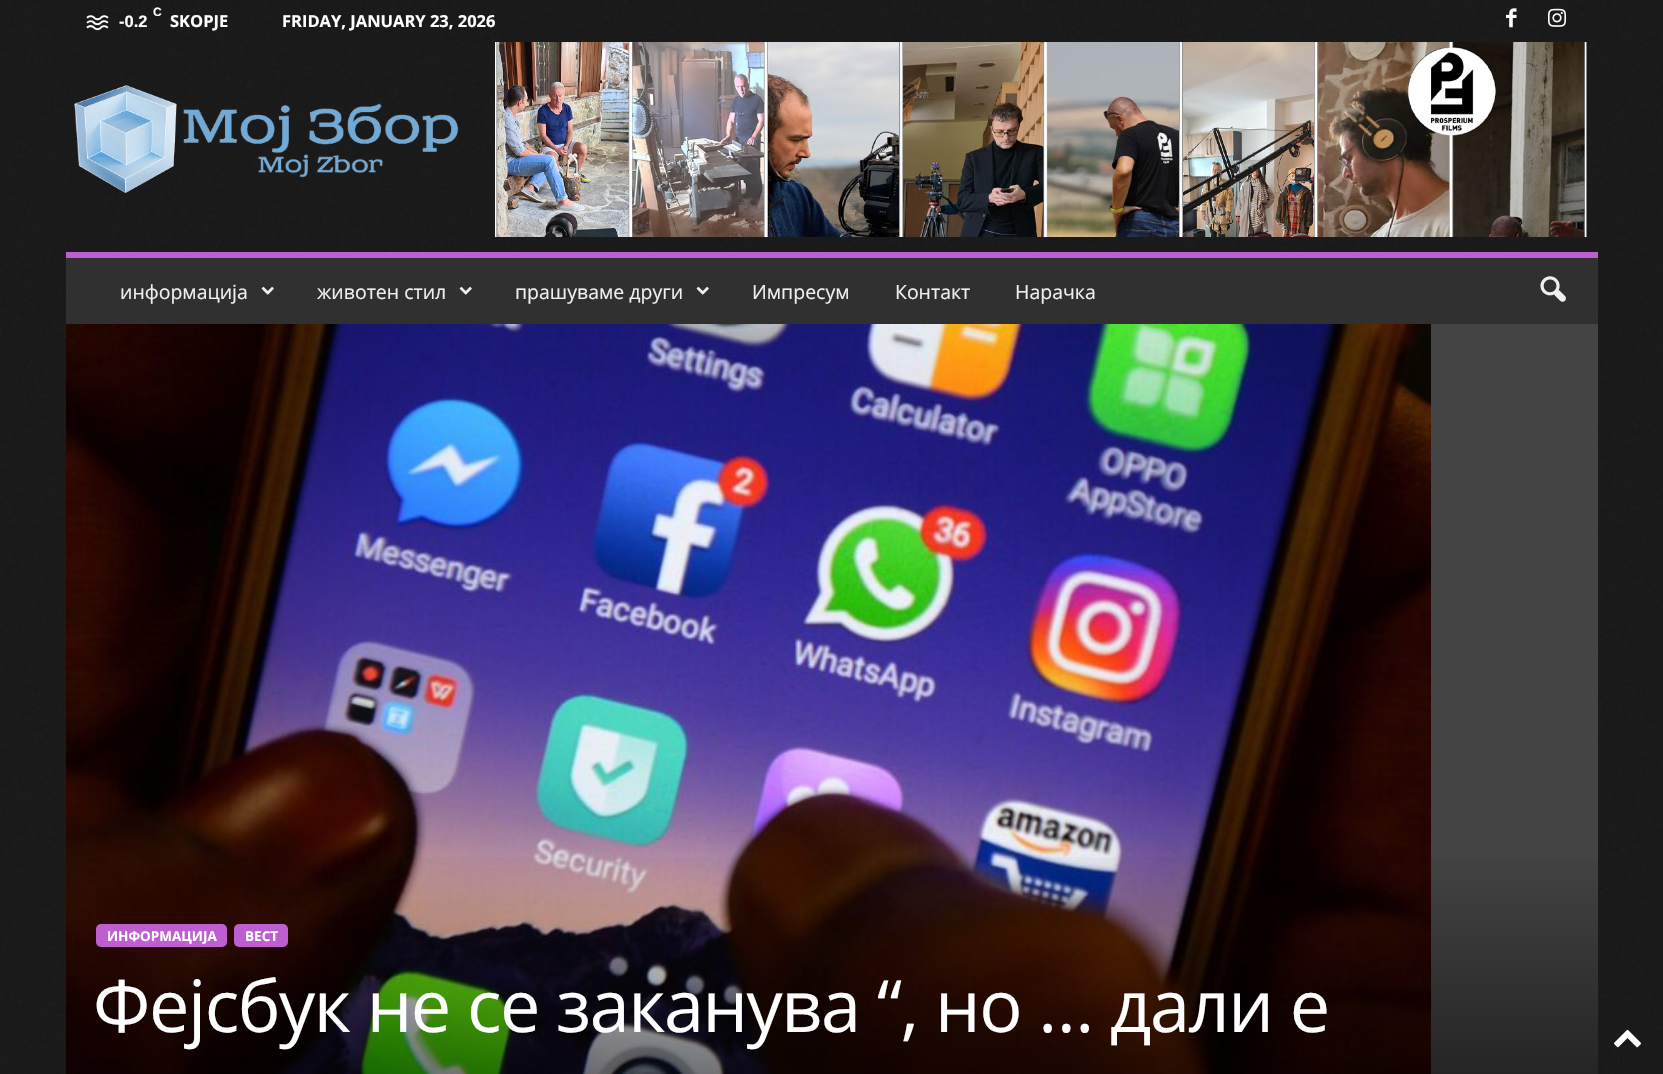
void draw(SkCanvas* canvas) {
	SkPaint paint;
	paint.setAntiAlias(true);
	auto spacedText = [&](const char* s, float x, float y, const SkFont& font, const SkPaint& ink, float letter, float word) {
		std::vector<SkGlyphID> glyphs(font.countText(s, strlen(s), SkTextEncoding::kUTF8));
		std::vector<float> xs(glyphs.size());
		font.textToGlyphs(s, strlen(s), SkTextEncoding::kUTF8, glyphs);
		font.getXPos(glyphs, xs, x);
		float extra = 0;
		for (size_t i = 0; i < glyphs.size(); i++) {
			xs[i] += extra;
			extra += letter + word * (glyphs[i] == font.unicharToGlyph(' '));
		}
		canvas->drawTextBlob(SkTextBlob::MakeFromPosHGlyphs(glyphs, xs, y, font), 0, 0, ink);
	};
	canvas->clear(0xffffffff);
	canvas->drawImageRect(SkImages::DeferredFromEncodedData(SkData::MakeFromFileName("img1.png")), SkRect::MakeXYWH(0, 0, 1663, 1074), SkSamplingOptions());
	canvas->drawImageRect(SkImages::DeferredFromEncodedData(SkData::MakeFromFileName("img2.png")), SkRect::MakeXYWH(86, 15, 23, 16), SkSamplingOptions());
	SkFont f1(fontMgr->matchFamilyStyle("Liberation Sans", SkFontStyle::Bold()), 12);
	f1.setSubpixel(true);
	paint.setColor(0xffffffff);
	canvas->drawString("C", 153, 16, f1, paint);
	SkFont f2(fontMgr->matchFamilyStyle("Liberation Sans", SkFontStyle::Bold()), 16.5);
	f2.setSubpixel(true);
	canvas->drawString("-0.2", 119, 27, f2, paint);
	SkFont f3(fontMgr->matchFamilyStyle("Open Sans", SkFontStyle::Bold()), 16.5);
	f3.setSubpixel(true);
	canvas->drawString("SKOPJE", 170, 27, f3, paint);
	canvas->drawString("FRIDAY, JANUARY 23, 2026", 282, 27, f3, paint);
	canvas->drawImageRect(SkImages::DeferredFromEncodedData(SkData::MakeFromFileName("img3.png")), SkRect::MakeXYWH(1506, 8, 11, 20), SkSamplingOptions());
	canvas->drawImageRect(SkImages::DeferredFromEncodedData(SkData::MakeFromFileName("img4.png")), SkRect::MakeXYWH(1548, 8, 18, 19), SkSamplingOptions());
	canvas->drawImageRect(SkImages::DeferredFromEncodedData(SkData::MakeFromFileName("img5.png")), SkRect::MakeXYWH(74, 85, 385, 108), SkSamplingOptions());
	canvas->drawImageRect(SkImages::DeferredFromEncodedData(SkData::MakeFromFileName("img6.png")), SkRect::MakeXYWH(495, 42, 1092, 195), SkSamplingOptions());
	paint.setColor(0xff303030);
	canvas->drawRect(SkRect::MakeXYWH(66, 258, 1532, 66), paint);
	paint.setColor(0xffbd5ed1);
	canvas->drawRect(SkRect::MakeXYWH(66, 252, 1532, 6), paint);
	SkFont f4(fontMgr->matchFamilyStyle("Open Sans", SkFontStyle::Normal()), 19.5);
	f4.setSubpixel(true);
	paint.setColor(0xffefefef);
	canvas->drawString("информација", 120, 299, f4, paint);
	canvas->drawImageRect(SkImages::DeferredFromEncodedData(SkData::MakeFromFileName("img7.png")), SkRect::MakeXYWH(261, 286, 13, 9), SkSamplingOptions());
	canvas->drawString("животен стил", 317, 299, f4, paint);
	canvas->drawImageRect(SkImages::DeferredFromEncodedData(SkData::MakeFromFileName("img7.png")), SkRect::MakeXYWH(459, 286, 13, 9), SkSamplingOptions());
	canvas->drawString("прашуваме други", 515, 299, f4, paint);
	canvas->drawImageRect(SkImages::DeferredFromEncodedData(SkData::MakeFromFileName("img7.png")), SkRect::MakeXYWH(696, 286, 13, 9), SkSamplingOptions());
	canvas->drawString("Импресум", 752, 299, f4, paint);
	canvas->drawString("Контакт", 895, 299, f4, paint);
	canvas->drawString("Нарачка", 1015, 299, f4, paint);
	canvas->drawImageRect(SkImages::DeferredFromEncodedData(SkData::MakeFromFileName("img8.png")), SkRect::MakeXYWH(1540, 276, 26, 26), SkSamplingOptions());
	paint.setColor(0xff444444);
	canvas->drawRect(SkRect::MakeXYWH(1431, 324, 167, 750), paint);
	canvas->drawImageRect(SkImages::DeferredFromEncodedData(SkData::MakeFromFileName("img9.png")), SkRect::MakeXYWH(66, 324, 1365, 750), SkSamplingOptions());
	{
		const SkColor colors[] = {0x00000000, 0xb3000000};
		const float stops[] = {0, 1};
		const SkPoint ends[] = {{832, 846}, {832, 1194}};
		paint.setShader(SkGradientShader::MakeLinear(ends, colors, stops, 2, SkTileMode::kClamp));
		paint.setAlpha(255);
	}
	canvas->drawRect(SkRect::MakeXYWH(66, 857, 1532, 217), paint);
	paint.setShader(nullptr);
	paint.setColor(0xffbd5ed1);
	canvas->drawRoundRect(SkRect::MakeXYWH(96, 924, 131, 23), 5, 5, paint);
	SkFont f5(fontMgr->matchFamilyStyle("Open Sans", SkFontStyle::Bold()), 13.5);
	f5.setSubpixel(true);
	paint.setColor(0xffffffff);
	canvas->drawString("ИНФОРМАЦИЈА", 107, 941, f5, paint);
	paint.setColor(0xffbd5ed1);
	canvas->drawRoundRect(SkRect::MakeXYWH(234, 924, 54, 23), 5, 5, paint);
	paint.setColor(0xffffffff);
	canvas->drawString("ВЕСТ", 245, 941, f5, paint);
	SkFont f6(fontMgr->matchFamilyStyle("Open Sans", SkFontStyle::Normal()), 72);
	f6.setSubpixel(true);
	spacedText("Фејсбук не се заканува “, но … дали е", 93, 1032, f6, paint, -1.45, 0);
	canvas->drawImageRect(SkImages::DeferredFromEncodedData(SkData::MakeFromFileName("img10.png")), SkRect::MakeXYWH(1614, 1029, 27, 19), SkSamplingOptions());
}
